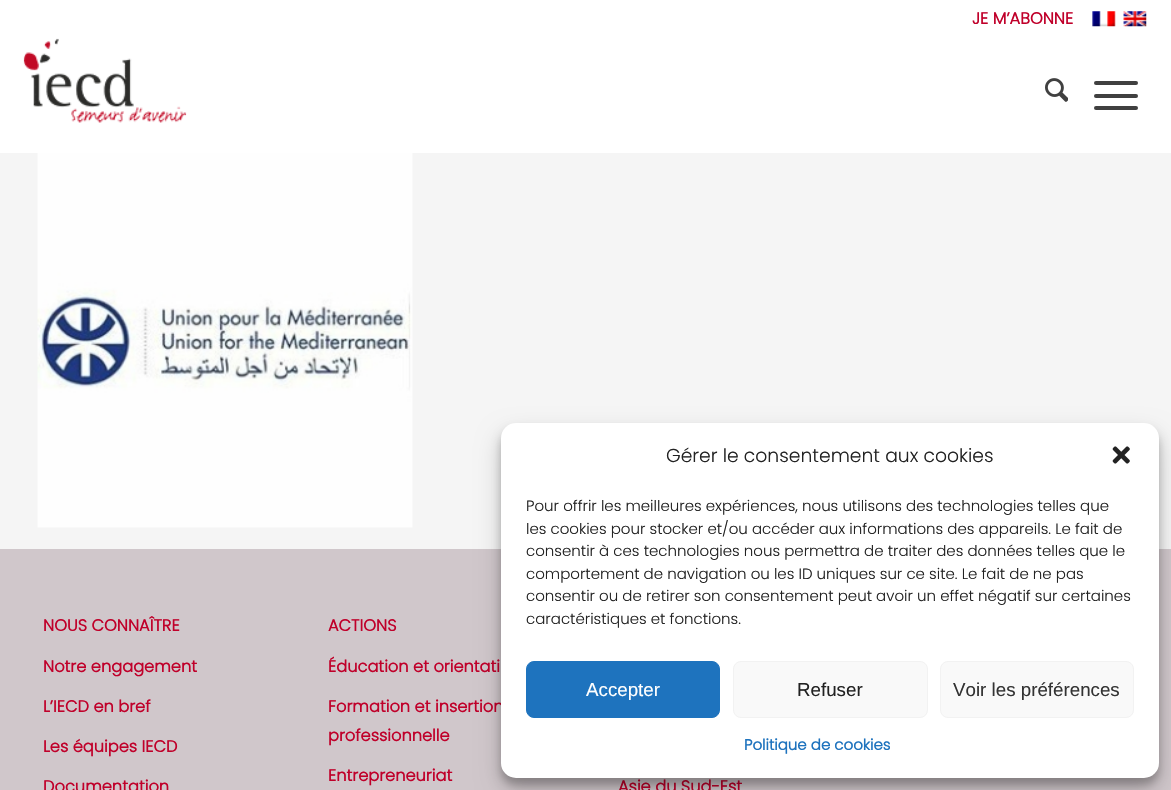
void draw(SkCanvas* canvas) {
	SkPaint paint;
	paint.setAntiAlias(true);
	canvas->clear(0xfff5f5f5);
	paint.setColor(0xffffffff);
	canvas->drawRect(SkRect::MakeXYWH(0, 0, 1171, 153), paint);
	SkFont f1(fontMgr->matchFamilyStyle("Poppins", SkFontStyle::Bold()), 16.25);
	f1.setSubpixel(true);
	paint.setColor(0xffc0002a);
	canvas->drawString("JE M’ABONNE", 972, 24, f1, paint);
	canvas->drawImageRect(SkImages::DeferredFromEncodedData(SkData::MakeFromFileName("img1.png")), SkRect::MakeXYWH(1092, 11, 24, 16), SkSamplingOptions());
	canvas->drawImageRect(SkImages::DeferredFromEncodedData(SkData::MakeFromFileName("img2.png")), SkRect::MakeXYWH(1123, 11, 24, 16), SkSamplingOptions());
	canvas->drawImageRect(SkImages::DeferredFromEncodedData(SkData::MakeFromFileName("img3.png")), SkRect::MakeXYWH(23, 38, 164, 85), SkSamplingOptions());
	canvas->drawImageRect(SkImages::DeferredFromEncodedData(SkData::MakeFromFileName("img4.png")), SkRect::MakeXYWH(1045, 78, 23, 24), SkSamplingOptions());
	paint.setColor(0xff404040);
	canvas->drawRoundRect(SkRect::MakeXYWH(1094, 94, 44, 4), 2, 2, paint);
	canvas->drawRoundRect(SkRect::MakeXYWH(1094, 81, 44, 4), 2, 2, paint);
	canvas->drawRoundRect(SkRect::MakeXYWH(1094, 106, 44, 4), 2, 2, paint);
	canvas->drawImageRect(SkImages::DeferredFromEncodedData(SkData::MakeFromFileName("img5.png")), SkRect::MakeXYWH(37, 153, 376, 375), SkSamplingOptions());
	paint.setColor(0xffd0c7cb);
	canvas->drawRect(SkRect::MakeXYWH(0, 549, 1171, 241), paint);
	paint.setColor(0xffc0002a);
	canvas->drawString("NOUS CONNAÎTRE", 43, 631, f1, paint);
	canvas->drawString("Notre engagement", 43, 672, f1, paint);
	canvas->drawString("L’IECD en bref", 43, 712, f1, paint);
	canvas->drawString("Les équipes IECD", 43, 752, f1, paint);
	canvas->drawString("Documentation", 43, 792, f1, paint);
	canvas->drawString("ACTIONS", 328, 631, f1, paint);
	canvas->drawString("Éducation et orientati", 328, 672, f1, paint);
	canvas->drawString("Formation et insertion", 328, 712, f1, paint);
	canvas->drawString("professionnelle", 328, 741, f1, paint);
	canvas->drawString("Entrepreneuriat", 328, 781, f1, paint);
	canvas->drawString("Asie du Sud-Est", 618, 792, f1, paint);
	paint.setColor(0x3b000000);
	paint.setMaskFilter(SkMaskFilter::MakeBlur(kNormal_SkBlurStyle, 4));
	canvas->drawRoundRect(SkRect::MakeXYWH(501, 430, 658, 355), 15, 15, paint);
	paint.setMaskFilter(nullptr);
	paint.setColor(0x30000000);
	paint.setMaskFilter(SkMaskFilter::MakeBlur(kNormal_SkBlurStyle, 12.5));
	canvas->drawRoundRect(SkRect::MakeXYWH(501, 435, 658, 355), 15, 15, paint);
	paint.setMaskFilter(nullptr);
	paint.setColor(0xffffffff);
	canvas->drawRoundRect(SkRect::MakeXYWH(501, 423, 658, 355), 15, 15, paint);
	SkFont f2(fontMgr->matchFamilyStyle("Poppins", SkFontStyle(300, SkFontStyle::kNormal_Width, SkFontStyle::kUpright_Slant)), 18.75);
	f2.setSubpixel(true);
	paint.setColor(0xff222222);
	canvas->drawString("Gérer le consentement aux cookies", 666, 462, f2, paint);
	canvas->drawImageRect(SkImages::DeferredFromEncodedData(SkData::MakeFromFileName("img6.png")), SkRect::MakeXYWH(1112, 446, 18, 18), SkSamplingOptions());
	SkFont f3(fontMgr->matchFamilyStyle("Poppins", SkFontStyle(300, SkFontStyle::kNormal_Width, SkFontStyle::kUpright_Slant)), 15);
	f3.setSubpixel(true);
	canvas->drawString("Pour offrir les meilleures expériences, nous utilisons des technologies telles que", 526, 511, f3, paint);
	canvas->drawString("les cookies pour stocker et/ou accéder aux informations des appareils. Le fait de", 526, 534, f3, paint);
	canvas->drawString("consentir à ces technologies nous permettra de traiter des données telles que le", 526, 556, f3, paint);
	canvas->drawString("comportement de navigation ou les ID uniques sur ce site. Le fait de ne pas", 526, 579, f3, paint);
	canvas->drawString("consentir ou de retirer son consentement peut avoir un effet négatif sur certaines", 526, 601, f3, paint);
	canvas->drawString("caractéristiques et fonctions.", 526, 624, f3, paint);
	paint.setColor(0xff1e73be);
	canvas->drawRoundRect(SkRect::MakeXYWH(526.5, 661.5, 193, 56), 7.5, 7.5, paint);
	paint.setStroke(true);
	paint.setStrokeWidth(1);
	canvas->drawRoundRect(SkRect::MakeXYWH(526.5, 661.5, 193, 56), 7.5, 7.5, paint);
	SkFont f4(fontMgr->matchFamilyStyle("Liberation Sans", SkFontStyle::Normal()), 18.75);
	f4.setSubpixel(true);
	paint.setStroke(false);
	paint.setColor(0xffffffff);
	canvas->drawString("Accepter", 586, 696, f4, paint);
	paint.setColor(0xfff9f9f9);
	canvas->drawRoundRect(SkRect::MakeXYWH(733.5, 661.5, 194, 56), 7.5, 7.5, paint);
	paint.setStroke(true);
	paint.setColor(0xfff2f2f2);
	canvas->drawRoundRect(SkRect::MakeXYWH(733.5, 661.5, 194, 56), 7.5, 7.5, paint);
	paint.setStroke(false);
	paint.setColor(0xff222222);
	canvas->drawString("Refuser", 797, 696, f4, paint);
	paint.setColor(0xfff9f9f9);
	canvas->drawRoundRect(SkRect::MakeXYWH(940.5, 661.5, 193, 56), 7.5, 7.5, paint);
	paint.setStroke(true);
	paint.setColor(0xfff2f2f2);
	canvas->drawRoundRect(SkRect::MakeXYWH(940.5, 661.5, 193, 56), 7.5, 7.5, paint);
	paint.setStroke(false);
	paint.setColor(0xff333333);
	canvas->drawString("Voir les préférences", 953, 696, f4, paint);
	SkFont f5(fontMgr->matchFamilyStyle("Poppins", SkFontStyle::Bold()), 15);
	f5.setSubpixel(true);
	paint.setColor(0xff1e73be);
	canvas->drawString("Politique de cookies", 744, 750, f5, paint);
}
